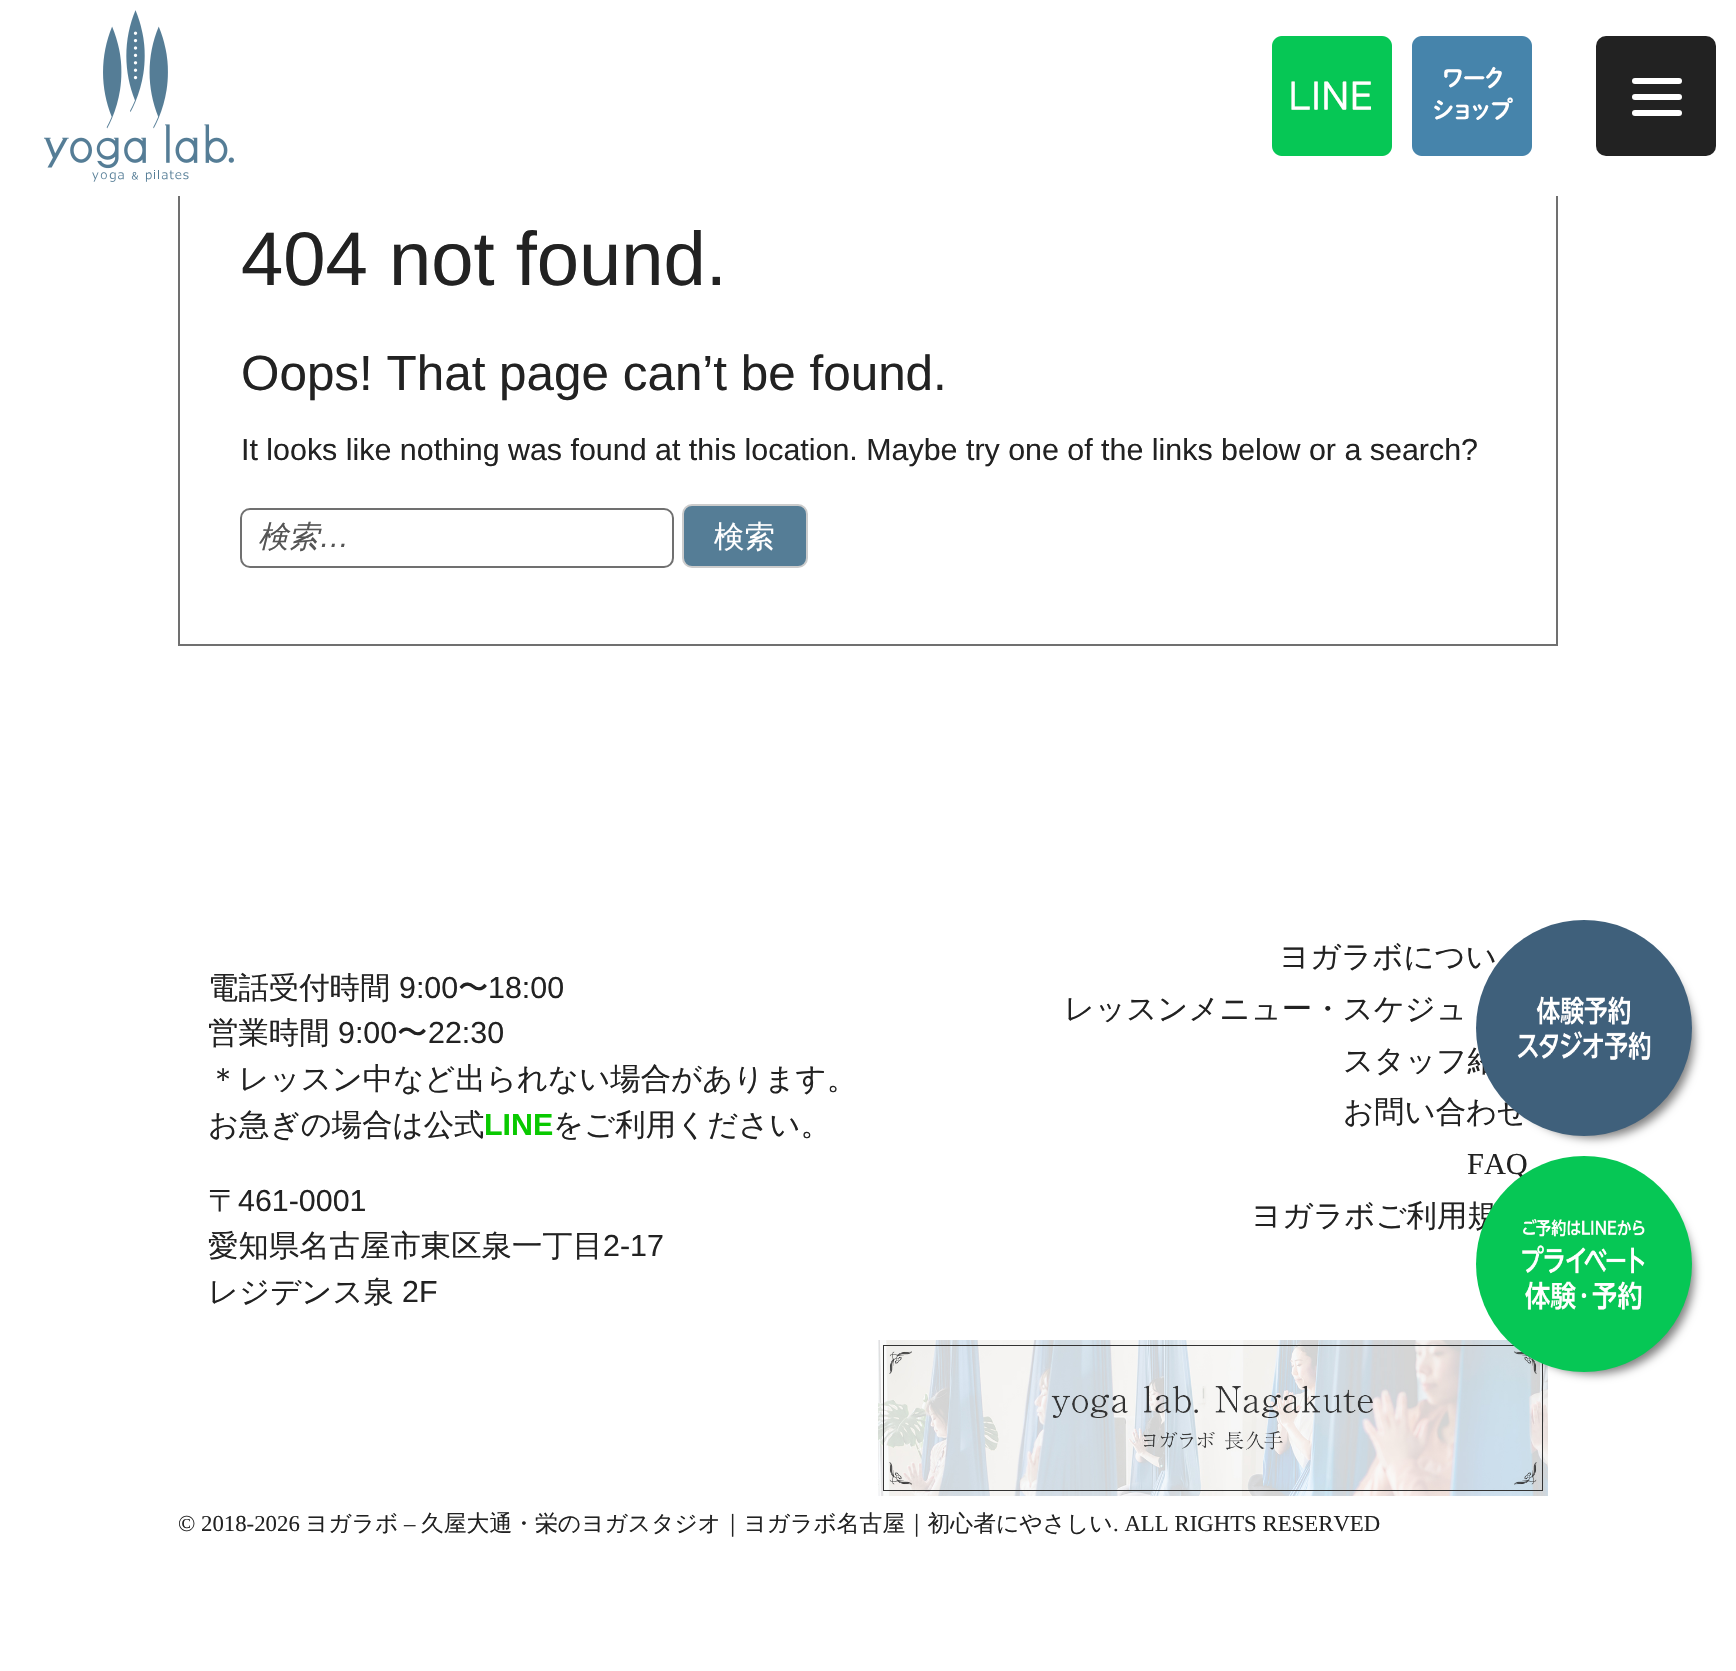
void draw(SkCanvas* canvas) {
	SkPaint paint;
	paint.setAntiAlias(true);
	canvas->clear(0xffffffff);
	paint.setStroke(true);
	paint.setStrokeWidth(2);
	paint.setColor(0xff707070);
	canvas->drawRect(SkRect::MakeXYWH(179, 153, 1378, 492), paint);
	paint.setStroke(false);
	paint.setColor(0xffffffff);
	canvas->drawRect(SkRect::MakeXYWH(178, 152, 1380, 44), paint);
	canvas->drawImageRect(SkImages::DeferredFromEncodedData(SkData::MakeFromFileName("img1.png")), SkRect::MakeXYWH(44, 10, 190, 172), SkSamplingOptions());
	canvas->drawImageRect(SkImages::DeferredFromEncodedData(SkData::MakeFromFileName("img2.png")), SkRect::MakeXYWH(1272, 36, 120, 120), SkSamplingOptions());
	canvas->drawImageRect(SkImages::DeferredFromEncodedData(SkData::MakeFromFileName("img3.png")), SkRect::MakeXYWH(1412, 36, 120, 120), SkSamplingOptions());
	paint.setColor(0xff222222);
	canvas->drawRoundRect(SkRect::MakeXYWH(1596, 36, 120, 120), 10, 10, paint);
	paint.setColor(0xffffffff);
	canvas->drawRoundRect(SkRect::MakeXYWH(1632, 94, 50, 6), 3, 3, paint);
	canvas->drawRoundRect(SkRect::MakeXYWH(1632, 78, 50, 6), 3, 3, paint);
	canvas->drawRoundRect(SkRect::MakeXYWH(1632, 110, 50, 6), 3, 3, paint);
	SkFont f1(fontMgr->matchFamilyStyle("Liberation Sans", SkFontStyle::Normal()), 76);
	f1.setSubpixel(true);
	paint.setColor(0xff222222);
	canvas->drawString("404 not found.", 241, 285, f1, paint);
	SkFont f2(fontMgr->matchFamilyStyle("Liberation Sans", SkFontStyle::Normal()), 49.4);
	f2.setSubpixel(true);
	canvas->drawString("Oops! That page can’t be found.", 241, 390, f2, paint);
	SkFont f3(fontMgr->matchFamilyStyle("Liberation Sans", SkFontStyle::Normal()), 30.4);
	f3.setSubpixel(true);
	canvas->drawString("It looks like nothing was found at this location. Maybe try one of the links below or a search?", 241, 460, f3, paint);
	paint.setStroke(true);
	paint.setColor(0xff707070);
	canvas->drawRoundRect(SkRect::MakeXYWH(241, 509, 432, 58), 9, 9, paint);
	SkFont f4(fontMgr->matchFamilyStyle("WenQuanYi Zen Hei", SkFontStyle(500, SkFontStyle::kNormal_Width, SkFontStyle::kItalic_Slant)), 30.4);
	f4.setSubpixel(true);
	paint.setStroke(false);
	paint.setColor(0xff555555);
	canvas->drawString("検索", 258, 547, f4, paint);
	SkFont f5(fontMgr->matchFamilyStyle("Liberation Sans", SkFontStyle::Italic()), 30.4);
	f5.setSubpixel(true);
	canvas->drawString("…", 319, 547, f5, paint);
	paint.setColor(0xff557d96);
	canvas->drawRoundRect(SkRect::MakeXYWH(683, 505, 124, 62), 9, 9, paint);
	paint.setStroke(true);
	paint.setColor(0xffcccccc);
	canvas->drawRoundRect(SkRect::MakeXYWH(683, 505, 124, 62), 9, 9, paint);
	SkFont f6(fontMgr->matchFamilyStyle("WenQuanYi Zen Hei", SkFontStyle(500, SkFontStyle::kNormal_Width, SkFontStyle::kUpright_Slant)), 30.4);
	f6.setSubpixel(true);
	paint.setStroke(false);
	paint.setColor(0xffffffff);
	canvas->drawString("検索", 714, 547, f6, paint);
	paint.setColor(0x80000000);
	paint.setMaskFilter(SkMaskFilter::MakeBlur(kNormal_SkBlurStyle, 5));
	canvas->drawRoundRect(SkRect::MakeXYWH(1494, 938, 200, 200), 100, 100, paint);
	paint.setMaskFilter(nullptr);
	paint.setColor(0xff222222);
	canvas->drawString("ヨガラボについ", 1279, 967, f6, paint);
	canvas->drawString("スタッフ紹", 1343, 1071, f6, paint);
	canvas->drawString("お問い合わせ", 1343, 1122, f6, paint);
	paint.setColor(0xff3f607b);
	canvas->drawCircle(1584, 1028, 108, paint);
	canvas->drawImageRect(SkImages::DeferredFromEncodedData(SkData::MakeFromFileName("img4.png")), SkRect::MakeXYWH(1517, 996, 134, 64), SkSamplingOptions());
	canvas->drawImageRect(SkImages::DeferredFromEncodedData(SkData::MakeFromFileName("img6.png")), SkRect::MakeXYWH(878, 1340, 670, 156), SkSamplingOptions());
	paint.setColor(0x80000000);
	paint.setMaskFilter(SkMaskFilter::MakeBlur(kNormal_SkBlurStyle, 5));
	canvas->drawRoundRect(SkRect::MakeXYWH(1494, 1174, 200, 200), 100, 100, paint);
	paint.setMaskFilter(nullptr);
	SkFont f7(fontMgr->matchFamilyStyle("Liberation Serif", SkFontStyle::Normal()), 30.4);
	f7.setSubpixel(true);
	paint.setColor(0xff222222);
	canvas->drawString("FAQ", 1467, 1174, f7, paint);
	canvas->drawString("ヨガラボご利用規", 1251, 1226, f6, paint);
	paint.setColor(0xff06c755);
	canvas->drawCircle(1584, 1264, 108, paint);
	canvas->drawImageRect(SkImages::DeferredFromEncodedData(SkData::MakeFromFileName("img5.png")), SkRect::MakeXYWH(1522, 1219, 123, 91), SkSamplingOptions());
	paint.setColor(0xff222222);
	canvas->drawString("電話受付時間", 208, 998, f6, paint);
	canvas->drawString("9:00", 399, 998, f3, paint);
	canvas->drawString("〜", 458, 998, f6, paint);
	canvas->drawString("18:00", 488, 998, f3, paint);
	canvas->drawString("営業時間", 208, 1043, f6, paint);
	canvas->drawString("9:00", 338, 1043, f3, paint);
	canvas->drawString("〜", 397, 1043, f6, paint);
	canvas->drawString("22:30", 428, 1043, f3, paint);
	canvas->drawString("＊レッスン中など出られない場合があります。", 208, 1089, f6, paint);
	canvas->drawString("お急ぎの場合は公式", 208, 1135, f6, paint);
	SkFont f8(fontMgr->matchFamilyStyle("Liberation Sans", SkFontStyle::Bold()), 30.4);
	f8.setSubpixel(true);
	paint.setColor(0xff09c900);
	canvas->drawString("LINE", 484, 1135, f8, paint);
	paint.setColor(0xff222222);
	canvas->drawString("をご利用ください。", 553, 1135, f6, paint);
	canvas->drawString("〒", 208, 1211, f6, paint);
	canvas->drawString("461-0001", 238, 1211, f3, paint);
	canvas->drawString("愛知県名古屋市東区泉一丁目", 208, 1256, f6, paint);
	canvas->drawString("2-17", 603, 1256, f3, paint);
	canvas->drawString("レジデンス泉", 208, 1302, f6, paint);
	canvas->drawString("2F", 402, 1302, f3, paint);
	canvas->drawString("レッスンメニュー・スケジュ", 1064, 1019, f6, paint);
	SkFont f9(fontMgr->matchFamilyStyle("Liberation Serif", SkFontStyle::Normal()), 22.8);
	f9.setSubpixel(true);
	canvas->drawString("© 2018-2026", 178, 1531, f9, paint);
	SkFont f10(fontMgr->matchFamilyStyle("WenQuanYi Zen Hei", SkFontStyle(500, SkFontStyle::kNormal_Width, SkFontStyle::kUpright_Slant)), 22.8);
	f10.setSubpixel(true);
	canvas->drawString("ヨガラボ", 305, 1531, f10, paint);
	canvas->drawString("–", 404, 1531, f9, paint);
	canvas->drawString("久屋大通・栄のヨガスタジオ｜ヨガラボ名古屋｜初心者にやさしい", 421, 1531, f10, paint);
	canvas->drawString(". ALL RIGHTS RESERVED", 1113, 1531, f9, paint);
}
